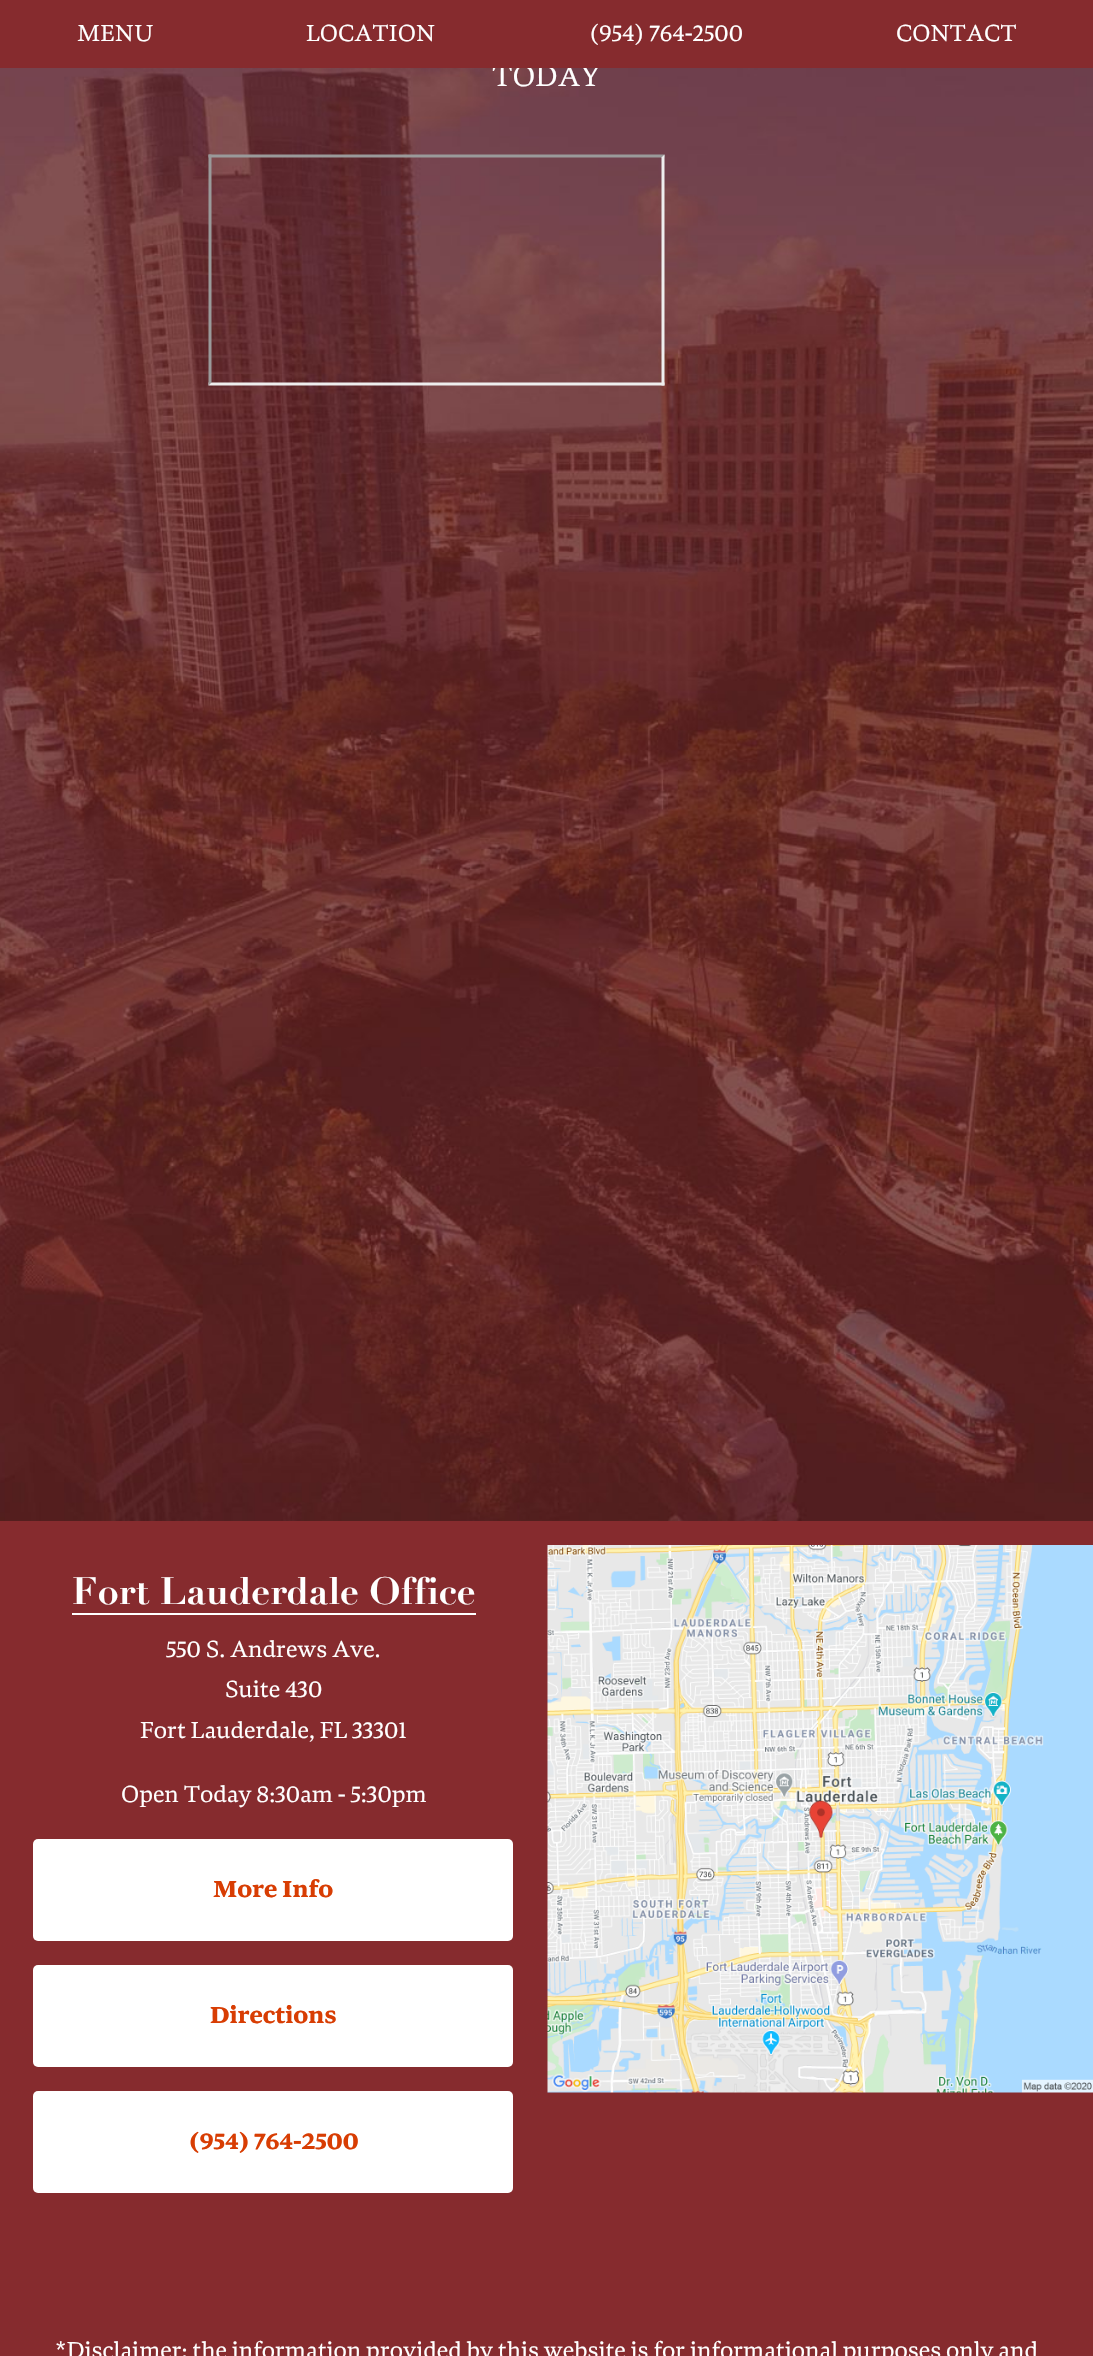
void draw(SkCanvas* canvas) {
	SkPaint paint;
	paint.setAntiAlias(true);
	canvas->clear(0xffffffff);
	canvas->drawImageRect(SkImages::DeferredFromEncodedData(SkData::MakeFromFileName("img2.png")), SkRect::MakeXYWH(0, 68, 1093, 1453), SkSamplingOptions());
	SkFont f1(fontMgr->matchFamilyStyle("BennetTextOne", SkFontStyle::Normal()), 30);
	f1.setSubpixel(true);
	paint.setColor(0xffffffff);
	canvas->drawString("TODAY", 492, 86, f1, paint);
	paint.setColor(0xff862b2e);
	canvas->drawRect(SkRect::MakeXYWH(0, 0, 1093, 68), paint);
	SkFont f2(fontMgr->matchFamilyStyle("BennetTextOne", SkFontStyle::Normal()), 24);
	f2.setSubpixel(true);
	paint.setColor(0xffffffff);
	canvas->drawString("MENU", 77, 41, f2, paint);
	canvas->drawString("LOCATION", 306, 41, f2, paint);
	canvas->drawString("(954) 764-2500", 589, 41, f2, paint);
	canvas->drawString("CONTACT", 896, 41, f2, paint);
	canvas->drawImageRect(SkImages::DeferredFromEncodedData(SkData::MakeFromFileName("img1.png")), SkRect::MakeXYWH(208, 154, 457, 232), SkSamplingOptions());
	paint.setColor(0xff862b2e);
	canvas->drawRect(SkRect::MakeXYWH(0, 1521, 1093, 835), paint);
	SkFont f3(fontMgr->matchFamilyStyle("Didot", SkFontStyle::Bold()), 37.5);
	f3.setSubpixel(true);
	paint.setColor(0xffffffff);
	canvas->drawString("Fort Lauderdale Office", 72, 1604, f3, paint);
	canvas->drawRect(SkRect::MakeXYWH(72, 1613, 404, 2), paint);
	canvas->drawString("550 S. Andrews Ave.", 166, 1657, f2, paint);
	canvas->drawString("Suite 430", 225, 1697, f2, paint);
	canvas->drawString("Fort Lauderdale, FL 33301", 140, 1738, f2, paint);
	canvas->drawString("Open Today 8:30am - 5:30pm", 121, 1802, f2, paint);
	canvas->drawRoundRect(SkRect::MakeXYWH(33, 1839, 480, 102), 5, 5, paint);
	SkFont f4(fontMgr->matchFamilyStyle("BennetTextOne", SkFontStyle::Bold()), 24);
	f4.setSubpixel(true);
	paint.setColor(0xffd83d03);
	canvas->drawString("More Info", 213, 1897, f4, paint);
	paint.setColor(0xffffffff);
	canvas->drawRoundRect(SkRect::MakeXYWH(33, 1965, 480, 102), 5, 5, paint);
	paint.setColor(0xffd83d03);
	canvas->drawString("Directions", 210, 2023, f4, paint);
	paint.setColor(0xffffffff);
	canvas->drawRoundRect(SkRect::MakeXYWH(33, 2091, 480, 102), 5, 5, paint);
	paint.setColor(0xffd83d03);
	canvas->drawString("(954) 764-2500", 189, 2149, f4, paint);
	canvas->drawImageRect(SkImages::DeferredFromEncodedData(SkData::MakeFromFileName("img3.png")), SkRect::MakeXYWH(547, 1545, 546, 548), SkSamplingOptions());
	paint.setColor(0xffffffff);
	canvas->drawString("*Disclaimer: the information provided by this website is for informational purposes only and", 55, 2358, f2, paint);
}
